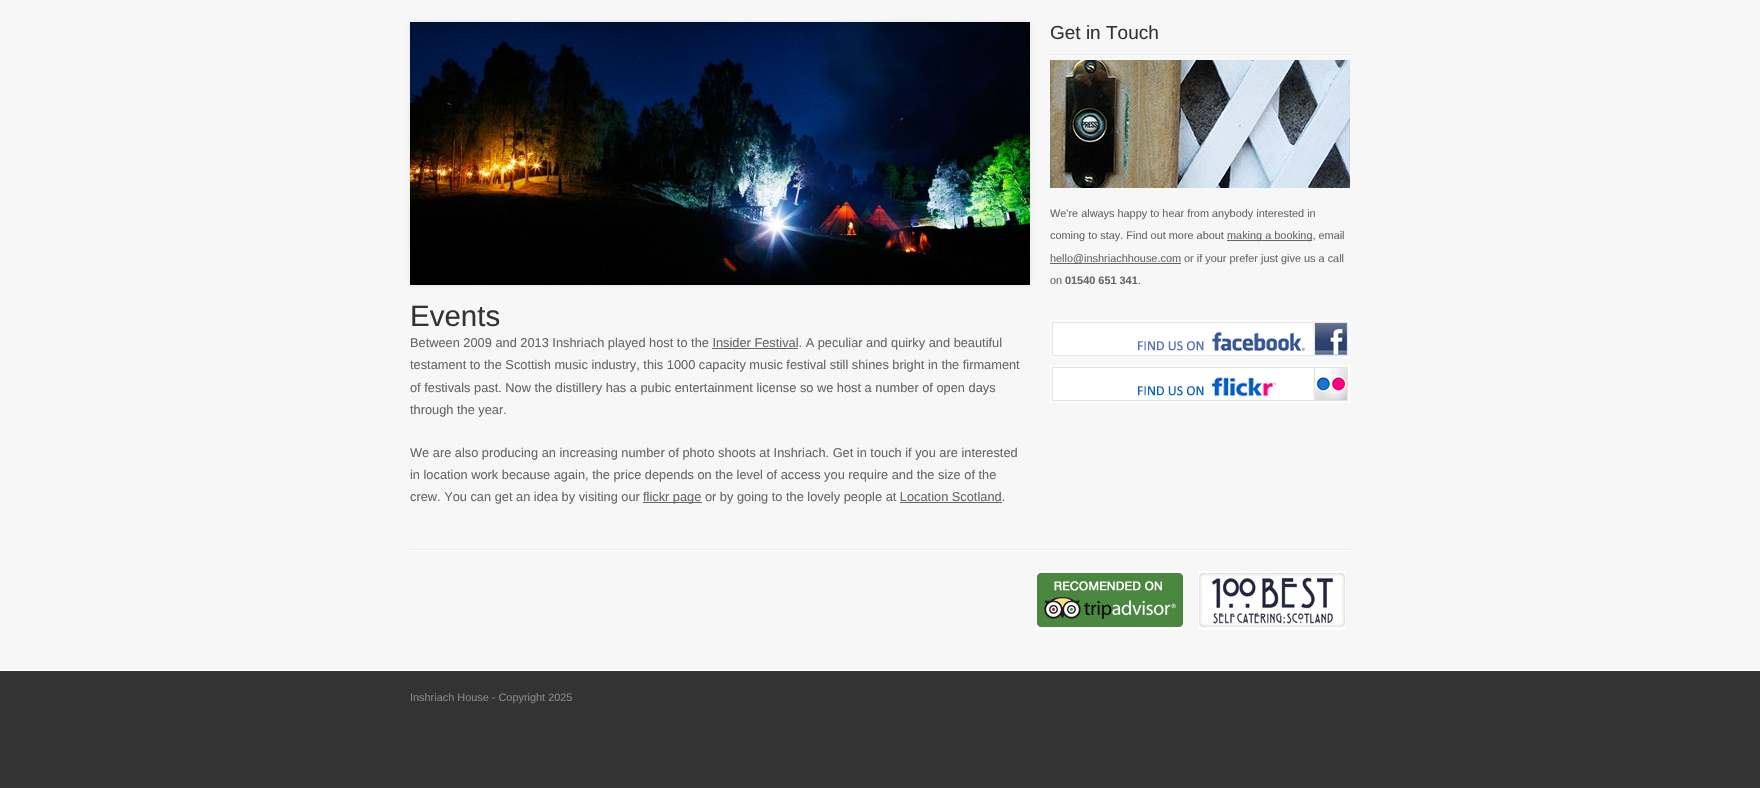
void draw(SkCanvas* canvas) {
	SkPaint paint;
	paint.setAntiAlias(true);
	canvas->clear(0xff333333);
	paint.setColor(0xfff7f7f7);
	canvas->drawRect(SkRect::MakeXYWH(0, 0, 1760, 670), paint);
	paint.setColor(0xffffffff);
	canvas->drawRect(SkRect::MakeXYWH(0, 670, 1760, 1), paint);
	paint.setColor(0xffeeeeee);
	canvas->drawRect(SkRect::MakeXYWH(1050, 54, 300, 1), paint);
	SkFont f1(fontMgr->matchFamilyStyle("Liberation Sans", SkFontStyle::Normal()), 19);
	f1.setSubpixel(true);
	paint.setColor(0xff333333);
	canvas->drawString("Get in Touch", 1050, 39, f1, paint);
	canvas->drawImageRect(SkImages::DeferredFromEncodedData(SkData::MakeFromFileName("img1.png")), SkRect::MakeXYWH(1050, 60, 300, 128), SkSamplingOptions());
	SkFont f2(fontMgr->matchFamilyStyle("Liberation Sans", SkFontStyle::Normal()), 10.9);
	f2.setSubpixel(true);
	paint.setColor(0xff666666);
	canvas->drawString("We're always happy to hear from anybody interested in", 1050, 217, f2, paint);
	canvas->drawString("coming to stay. Find out more about", 1050, 239, f2, paint);
	canvas->drawRect(SkRect::MakeXYWH(1227, 240, 85, 1), paint);
	canvas->drawString("making a booking, email", 1227, 239, f2, paint);
	canvas->drawRect(SkRect::MakeXYWH(1050, 263, 131, 1), paint);
	canvas->drawString("hello@inshriachhouse.com or if your prefer just give us a call", 1050, 262, f2, paint);
	canvas->drawString("on", 1050, 284, f2, paint);
	SkFont f3(fontMgr->matchFamilyStyle("Liberation Sans", SkFontStyle::Bold()), 10.9);
	f3.setSubpixel(true);
	canvas->drawString("01540 651 341", 1065, 284, f3, paint);
	canvas->drawString(".", 1138, 284, f2, paint);
	canvas->drawImageRect(SkImages::DeferredFromEncodedData(SkData::MakeFromFileName("img2.png")), SkRect::MakeXYWH(1050, 320, 300, 38), SkSamplingOptions());
	canvas->drawImageRect(SkImages::DeferredFromEncodedData(SkData::MakeFromFileName("img3.png")), SkRect::MakeXYWH(1050, 365, 300, 38), SkSamplingOptions());
	paint.setColor(0xffdddddd);
	paint.setMaskFilter(SkMaskFilter::MakeBlur(kNormal_SkBlurStyle, 1.5));
	canvas->drawRect(SkRect::MakeXYWH(410, 22, 620, 263), paint);
	paint.setMaskFilter(nullptr);
	canvas->drawImageRect(SkImages::DeferredFromEncodedData(SkData::MakeFromFileName("img4.png")), SkRect::MakeXYWH(410, 22, 620, 263), SkSamplingOptions());
	SkFont f4(fontMgr->matchFamilyStyle("Liberation Sans", SkFontStyle::Normal()), 29.5);
	f4.setSubpixel(true);
	paint.setColor(0xff333333);
	canvas->drawString("Events", 410, 326, f4, paint);
	SkFont f5(fontMgr->matchFamilyStyle("Liberation Sans", SkFontStyle::Normal()), 12.8);
	f5.setSubpixel(true);
	paint.setColor(0xff666666);
	canvas->drawString("Between 2009 and 2013 Inshriach played host to the Insider Festival. A peculiar and quirky and beautiful", 410, 347, f5, paint);
	canvas->drawRect(SkRect::MakeXYWH(712, 348, 86, 1), paint);
	canvas->drawString("testament to the Scottish music industry, this 1000 capacity music festival still shines bright in the firmament", 410, 369, f5, paint);
	canvas->drawString("of festivals past. Now the distillery has a pubic entertainment license so we host a number of open days", 410, 392, f5, paint);
	canvas->drawString("through the year.", 410, 414, f5, paint);
	canvas->drawString("We are also producing an increasing number of photo shoots at Inshriach. Get in touch if you are interested", 410, 457, f5, paint);
	canvas->drawString("in location work because again, the price depends on the level of access you require and the size of the", 410, 479, f5, paint);
	canvas->drawString("crew. You can get an idea by visiting our", 410, 501, f5, paint);
	canvas->drawRect(SkRect::MakeXYWH(643, 502, 59, 1), paint);
	canvas->drawString("flickr page or by going to the lovely people at Location Scotland.", 643, 501, f5, paint);
	canvas->drawRect(SkRect::MakeXYWH(900, 502, 102, 1), paint);
	canvas->drawImageRect(SkImages::DeferredFromEncodedData(SkData::MakeFromFileName("img5.png")), SkRect::MakeXYWH(410, 549, 940, 2), SkSamplingOptions());
	canvas->drawImageRect(SkImages::DeferredFromEncodedData(SkData::MakeFromFileName("img6.png")), SkRect::MakeXYWH(1036, 571, 148, 59), SkSamplingOptions());
	canvas->drawImageRect(SkImages::DeferredFromEncodedData(SkData::MakeFromFileName("img7.png")), SkRect::MakeXYWH(1198, 571, 148, 59), SkSamplingOptions());
	paint.setColor(0xff888888);
	canvas->drawString("Inshriach House - Copyright 2025", 410, 701, f2, paint);
}
